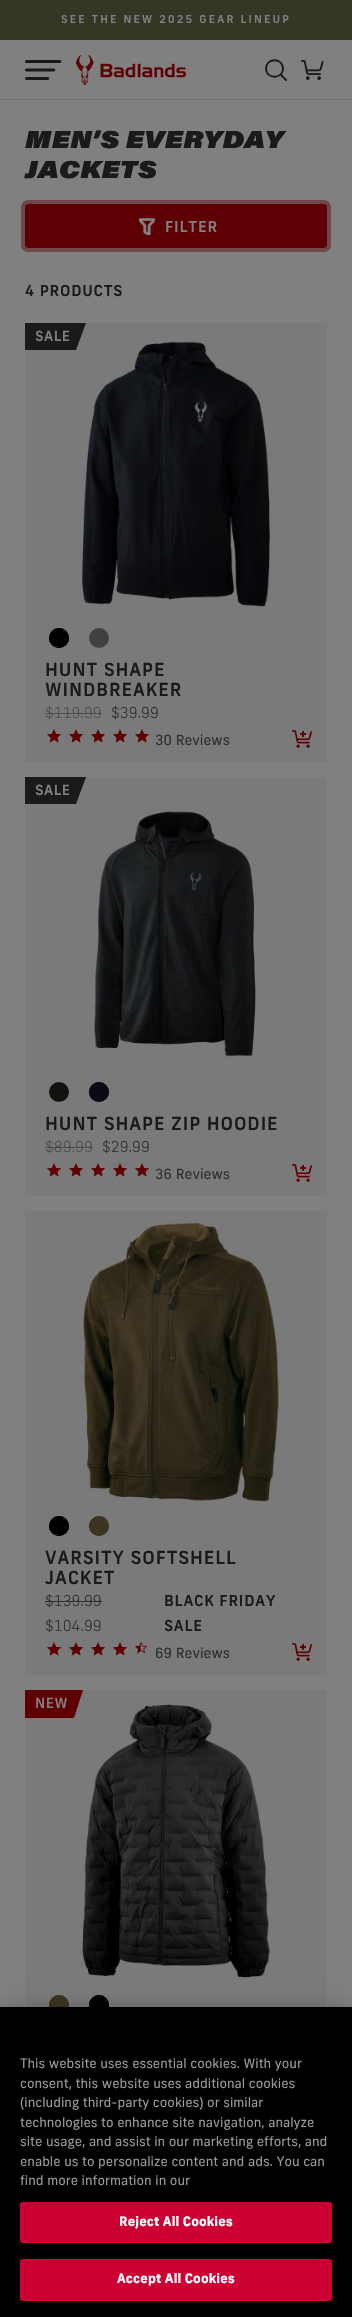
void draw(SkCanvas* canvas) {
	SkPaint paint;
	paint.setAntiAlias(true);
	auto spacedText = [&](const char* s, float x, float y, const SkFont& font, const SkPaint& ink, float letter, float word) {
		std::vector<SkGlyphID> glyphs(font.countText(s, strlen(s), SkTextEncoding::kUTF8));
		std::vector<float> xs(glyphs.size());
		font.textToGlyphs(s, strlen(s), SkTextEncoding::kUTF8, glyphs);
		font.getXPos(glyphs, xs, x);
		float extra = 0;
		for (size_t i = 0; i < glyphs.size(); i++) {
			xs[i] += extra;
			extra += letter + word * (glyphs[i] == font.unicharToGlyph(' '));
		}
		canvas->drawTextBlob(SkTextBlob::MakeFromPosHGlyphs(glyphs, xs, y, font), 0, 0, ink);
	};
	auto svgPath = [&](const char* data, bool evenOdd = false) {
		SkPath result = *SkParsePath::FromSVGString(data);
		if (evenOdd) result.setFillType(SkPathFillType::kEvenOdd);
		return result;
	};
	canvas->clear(0xff808080);
	paint.setColor(0xff343626);
	canvas->drawRect(SkRect::MakeXYWH(0, 0, 352, 40), paint);
	SkFont f1(fontMgr->matchFamilyStyle("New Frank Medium", SkFontStyle(500, SkFontStyle::kNormal_Width, SkFontStyle::kUpright_Slant)), 10.8);
	f1.setSubpixel(true);
	paint.setColor(0xff808080);
	spacedText("SEE THE NEW 2025 GEAR LINEUP", 61, 23, f1, paint, 2.15, 0);
	paint.setColor(0xff71706f);
	canvas->drawRect(SkRect::MakeXYWH(0, 99, 352, 1), paint);
	canvas->drawImageRect(SkImages::DeferredFromEncodedData(SkData::MakeFromFileName("img1.png")), SkRect::MakeXYWH(25, 60, 37, 20), SkSamplingOptions());
	canvas->drawImageRect(SkImages::DeferredFromEncodedData(SkData::MakeFromFileName("img2.png")), SkRect::MakeXYWH(76, 55, 110, 30), SkSamplingOptions());
	paint.setStroke(true);
	paint.setStrokeWidth(1.8);
	paint.setStrokeCap(SkPaint::kRound_Cap);
	paint.setStrokeJoin(SkPaint::kRound_Join);
	paint.setColor(0xff1a1a1a);
	canvas->drawPath(svgPath("M283 68.5C283 79.5 266 79.5 266 68.5C266 57.5 283 57.5 283 68.5ZM286 80L280.5 74.5"), paint);
	canvas->drawImageRect(SkImages::DeferredFromEncodedData(SkData::MakeFromFileName("img3.png")), SkRect::MakeXYWH(301, 60, 23, 20), SkSamplingOptions());
	SkFont f2(fontMgr->matchFamilyStyle("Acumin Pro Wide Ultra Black", SkFontStyle(800, SkFontStyle::kNormal_Width, SkFontStyle::kItalic_Slant)), 24);
	f2.setSubpixel(true);
	paint.setStroke(false);
	spacedText("MEN’S EVERYDAY", 25, 148, f2, paint, 0.6, 0);
	spacedText("JACKETS", 25, 178, f2, paint, 0.6, 0);
	paint.setColor(0xff5e0003);
	canvas->drawRoundRect(SkRect::MakeXYWH(25, 204, 302, 44), 3, 3, paint);
	paint.setStroke(true);
	paint.setStrokeWidth(4);
	paint.setStrokeCap(SkPaint::kButt_Cap);
	paint.setStrokeJoin(SkPaint::kMiter_Join);
	paint.setColor(0x805d1013);
	canvas->drawRoundRect(SkRect::MakeXYWH(23, 202, 306, 48), 5, 5, paint);
	canvas->drawImageRect(SkImages::DeferredFromEncodedData(SkData::MakeFromFileName("img4.png")), SkRect::MakeXYWH(139, 218, 16, 17), SkSamplingOptions());
	SkFont f3(fontMgr->matchFamilyStyle("New Frank Medium", SkFontStyle(500, SkFontStyle::kNormal_Width, SkFontStyle::kUpright_Slant)), 15);
	f3.setSubpixel(true);
	paint.setStroke(false);
	paint.setColor(0xff808080);
	spacedText("FILTER", 165, 232, f3, paint, 0.75, 0);
	paint.setColor(0xff1a1a1a);
	spacedText("4 PRODUCTS", 25, 296, f3, paint, 0.75, 0);
	paint.setColor(0xff7b7a7a);
	canvas->drawRect(SkRect::MakeXYWH(25, 323, 302, 439), paint);
	canvas->drawImageRect(SkImages::DeferredFromEncodedData(SkData::MakeFromFileName("img5.png")), SkRect::MakeXYWH(82, 341, 188, 266), SkSamplingOptions());
	paint.setColor(0xff1a1a1a);
	canvas->drawPath(svgPath("M25 323V350H76L86 323Z"), paint);
	SkFont f4(fontMgr->matchFamilyStyle("New Frank Medium", SkFontStyle(500, SkFontStyle::kNormal_Width, SkFontStyle::kUpright_Slant)), 14);
	f4.setSubpixel(true);
	paint.setColor(0xff808080);
	spacedText("SALE", 35, 341, f4, paint, 0.5, 0);
	paint.setColor(0xff000000);
	canvas->drawCircle(59, 638, 10, paint);
	canvas->drawImageRect(SkImages::DeferredFromEncodedData(SkData::MakeFromFileName("img6.png")), SkRect::MakeXYWH(49, 628, 20, 20), SkSamplingOptions());
	paint.setColor(0xff404040);
	canvas->drawCircle(99, 638, 10, paint);
	SkFont f5(fontMgr->matchFamilyStyle("New Frank Medium", SkFontStyle(500, SkFontStyle::kNormal_Width, SkFontStyle::kUpright_Slant)), 18);
	f5.setSubpixel(true);
	paint.setColor(0xff1a1a1a);
	spacedText("HUNT SHAPE", 45, 676, f5, paint, 0.9, 0);
	spacedText("WINDBREAKER", 45, 696, f5, paint, 0.9, 0);
	SkFont f6(fontMgr->matchFamilyStyle("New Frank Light", SkFontStyle(300, SkFontStyle::kNormal_Width, SkFontStyle::kUpright_Slant)), 15);
	f6.setSubpixel(true);
	paint.setColor(0xff4d4d4d);
	canvas->drawString("$119.99", 45, 718, f6, paint);
	canvas->drawRect(SkRect::MakeXYWH(45, 713, 57, 1), paint);
	paint.setColor(0xff2e2e2e);
	canvas->drawString("$39.99", 111, 718, f6, paint);
	canvas->drawImageRect(SkImages::DeferredFromEncodedData(SkData::MakeFromFileName("img7.png")), SkRect::MakeXYWH(47, 729, 14, 14), SkSamplingOptions());
	canvas->drawImageRect(SkImages::DeferredFromEncodedData(SkData::MakeFromFileName("img7.png")), SkRect::MakeXYWH(69, 729, 14, 14), SkSamplingOptions());
	canvas->drawImageRect(SkImages::DeferredFromEncodedData(SkData::MakeFromFileName("img7.png")), SkRect::MakeXYWH(91, 729, 14, 14), SkSamplingOptions());
	canvas->drawImageRect(SkImages::DeferredFromEncodedData(SkData::MakeFromFileName("img7.png")), SkRect::MakeXYWH(113, 729, 14, 14), SkSamplingOptions());
	canvas->drawImageRect(SkImages::DeferredFromEncodedData(SkData::MakeFromFileName("img7.png")), SkRect::MakeXYWH(135, 729, 14, 14), SkSamplingOptions());
	SkFont f7(fontMgr->matchFamilyStyle("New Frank", SkFontStyle::Normal()), 14);
	f7.setSubpixel(true);
	canvas->drawString("30 Reviews", 155, 745, f7, paint);
	canvas->drawImageRect(SkImages::DeferredFromEncodedData(SkData::MakeFromFileName("img8.png")), SkRect::MakeXYWH(292, 730, 20, 18), SkSamplingOptions());
	paint.setColor(0xff7b7a7a);
	canvas->drawRect(SkRect::MakeXYWH(25, 777, 302, 419), paint);
	paint.setColor(0xff1a1a1a);
	canvas->drawPath(svgPath("M25 777V804H76L86 777Z"), paint);
	paint.setColor(0xff808080);
	spacedText("SALE", 35, 795, f4, paint, 0.5, 0);
	canvas->drawImageRect(SkImages::DeferredFromEncodedData(SkData::MakeFromFileName("img9.png")), SkRect::MakeXYWH(94, 811, 162, 246), SkSamplingOptions());
	canvas->drawImageRect(SkImages::DeferredFromEncodedData(SkData::MakeFromFileName("img10.png")), SkRect::MakeXYWH(49, 1082, 20, 20), SkSamplingOptions());
	paint.setColor(0xff000040);
	canvas->drawCircle(99, 1092, 10, paint);
	canvas->drawImageRect(SkImages::DeferredFromEncodedData(SkData::MakeFromFileName("img11.png")), SkRect::MakeXYWH(89, 1082, 20, 20), SkSamplingOptions());
	paint.setColor(0xff1a1a1a);
	spacedText("HUNT SHAPE ZIP HOODIE", 45, 1130, f5, paint, 0.9, 0);
	paint.setColor(0xff4d4d4d);
	canvas->drawString("$89.99", 45, 1152, f6, paint);
	canvas->drawRect(SkRect::MakeXYWH(45, 1147, 48, 1), paint);
	paint.setColor(0xff2e2e2e);
	canvas->drawString("$29.99", 102, 1152, f6, paint);
	canvas->drawImageRect(SkImages::DeferredFromEncodedData(SkData::MakeFromFileName("img7.png")), SkRect::MakeXYWH(47, 1163, 14, 14), SkSamplingOptions());
	canvas->drawImageRect(SkImages::DeferredFromEncodedData(SkData::MakeFromFileName("img7.png")), SkRect::MakeXYWH(69, 1163, 14, 14), SkSamplingOptions());
	canvas->drawImageRect(SkImages::DeferredFromEncodedData(SkData::MakeFromFileName("img7.png")), SkRect::MakeXYWH(91, 1163, 14, 14), SkSamplingOptions());
	canvas->drawImageRect(SkImages::DeferredFromEncodedData(SkData::MakeFromFileName("img7.png")), SkRect::MakeXYWH(113, 1163, 14, 14), SkSamplingOptions());
	canvas->drawImageRect(SkImages::DeferredFromEncodedData(SkData::MakeFromFileName("img7.png")), SkRect::MakeXYWH(135, 1163, 14, 14), SkSamplingOptions());
	canvas->drawString("36 Reviews", 155, 1179, f7, paint);
	canvas->drawImageRect(SkImages::DeferredFromEncodedData(SkData::MakeFromFileName("img8.png")), SkRect::MakeXYWH(292, 1164, 20, 18), SkSamplingOptions());
	paint.setColor(0xff7b7a7a);
	canvas->drawRect(SkRect::MakeXYWH(25, 1211, 302, 464), paint);
	canvas->drawImageRect(SkImages::DeferredFromEncodedData(SkData::MakeFromFileName("img12.png")), SkRect::MakeXYWH(83, 1222, 196, 280), SkSamplingOptions());
	paint.setColor(0xff000000);
	canvas->drawCircle(59, 1526, 10, paint);
	canvas->drawImageRect(SkImages::DeferredFromEncodedData(SkData::MakeFromFileName("img13.png")), SkRect::MakeXYWH(49, 1516, 20, 20), SkSamplingOptions());
	paint.setColor(0xff404000);
	canvas->drawCircle(99, 1526, 10, paint);
	canvas->drawImageRect(SkImages::DeferredFromEncodedData(SkData::MakeFromFileName("img14.png")), SkRect::MakeXYWH(89, 1516, 20, 20), SkSamplingOptions());
	paint.setColor(0xff1a1a1a);
	spacedText("VARSITY SOFTSHELL", 45, 1564, f5, paint, 0.9, 0);
	spacedText("JACKET", 45, 1584, f5, paint, 0.9, 0);
	paint.setColor(0xff2e2e2e);
	canvas->drawString("$139.99", 45, 1606, f6, paint);
	canvas->drawRect(SkRect::MakeXYWH(45, 1601, 57, 1), paint);
	canvas->drawString("$104.99", 45, 1631, f6, paint);
	paint.setColor(0xff1a1a1a);
	spacedText("BLACK FRIDAY", 164, 1606, f3, paint, 0.75, 0);
	spacedText("SALE", 164, 1631, f3, paint, 0.75, 0);
	canvas->drawImageRect(SkImages::DeferredFromEncodedData(SkData::MakeFromFileName("img7.png")), SkRect::MakeXYWH(47, 1642, 14, 14), SkSamplingOptions());
	canvas->drawImageRect(SkImages::DeferredFromEncodedData(SkData::MakeFromFileName("img7.png")), SkRect::MakeXYWH(69, 1642, 14, 14), SkSamplingOptions());
	canvas->drawImageRect(SkImages::DeferredFromEncodedData(SkData::MakeFromFileName("img7.png")), SkRect::MakeXYWH(91, 1642, 14, 14), SkSamplingOptions());
	canvas->drawImageRect(SkImages::DeferredFromEncodedData(SkData::MakeFromFileName("img7.png")), SkRect::MakeXYWH(113, 1642, 14, 14), SkSamplingOptions());
	canvas->drawImageRect(SkImages::DeferredFromEncodedData(SkData::MakeFromFileName("img15.png")), SkRect::MakeXYWH(134, 1641, 14, 13), SkSamplingOptions());
	paint.setColor(0xff2e2e2e);
	canvas->drawString("69 Reviews", 155, 1658, f7, paint);
	canvas->drawImageRect(SkImages::DeferredFromEncodedData(SkData::MakeFromFileName("img8.png")), SkRect::MakeXYWH(292, 1643, 20, 18), SkSamplingOptions());
	paint.setColor(0xff7b7a7a);
	canvas->drawRect(SkRect::MakeXYWH(25, 1690, 302, 317), paint);
	canvas->drawImageRect(SkImages::DeferredFromEncodedData(SkData::MakeFromFileName("img16.png")), SkRect::MakeXYWH(82, 1704, 188, 274), SkSamplingOptions());
	paint.setColor(0xff5e0003);
	canvas->drawPath(svgPath("M25 1690V1718H74L83 1690Z"), paint);
	paint.setColor(0xff808080);
	spacedText("NEW", 35, 1708, f4, paint, 0.5, 0);
	paint.setColor(0xff404000);
	canvas->drawCircle(59, 2005, 10, paint);
	canvas->drawImageRect(SkImages::DeferredFromEncodedData(SkData::MakeFromFileName("img17.png")), SkRect::MakeXYWH(49, 1995, 20, 12), SkSamplingOptions());
	paint.setColor(0xff000000);
	canvas->drawCircle(99, 2005, 10, paint);
	canvas->drawImageRect(SkImages::DeferredFromEncodedData(SkData::MakeFromFileName("img18.png")), SkRect::MakeXYWH(89, 1995, 20, 12), SkSamplingOptions());
	paint.setColor(0x33000000);
	paint.setMaskFilter(SkMaskFilter::MakeBlur(kNormal_SkBlurStyle, 9));
	canvas->drawRect(SkRect::MakeXYWH(0, 2007, 352, 310), paint);
	paint.setMaskFilter(nullptr);
	paint.setColor(0xff000000);
	canvas->drawRect(SkRect::MakeXYWH(0, 2007, 352, 310), paint);
	SkFont f8(fontMgr->matchFamilyStyle("New Frank", SkFontStyle::Normal()), 13);
	f8.setSubpixel(true);
	paint.setColor(0xff999999);
	canvas->drawString("This website uses essential cookies. With your", 20, 2068, f8, paint);
	canvas->drawString("consent, this website uses additional cookies", 20, 2088, f8, paint);
	canvas->drawString("(including third-party cookies) or similar", 20, 2107, f8, paint);
	canvas->drawString("technologies to enhance site navigation, analyze", 20, 2127, f8, paint);
	canvas->drawString("site usage, and assist in our marketing efforts, and", 20, 2146, f8, paint);
	canvas->drawString("enable us to personalize content and ads. You can", 20, 2166, f8, paint);
	canvas->drawString("find more information in our", 20, 2185, f8, paint);
	paint.setColor(0xffcc0033);
	canvas->drawRoundRect(SkRect::MakeXYWH(20.5, 2202.5, 311, 40), 1.5, 1.5, paint);
	paint.setStroke(true);
	paint.setStrokeWidth(1);
	canvas->drawRoundRect(SkRect::MakeXYWH(20.5, 2202.5, 311, 40), 1.5, 1.5, paint);
	SkFont f9(fontMgr->matchFamilyStyle("New Frank", SkFontStyle::Bold()), 13);
	f9.setSubpixel(true);
	paint.setStroke(false);
	paint.setColor(0xffffffff);
	spacedText("Reject All Cookies", 119, 2226, f9, paint, 0.1, 0);
	paint.setColor(0xffcc0033);
	canvas->drawRoundRect(SkRect::MakeXYWH(20.5, 2259.5, 311, 41), 1.5, 1.5, paint);
	paint.setStroke(true);
	canvas->drawRoundRect(SkRect::MakeXYWH(20.5, 2259.5, 311, 41), 1.5, 1.5, paint);
	paint.setStroke(false);
	paint.setColor(0xffffffff);
	spacedText("Accept All Cookies", 117, 2283, f9, paint, 0.1, 0);
}
